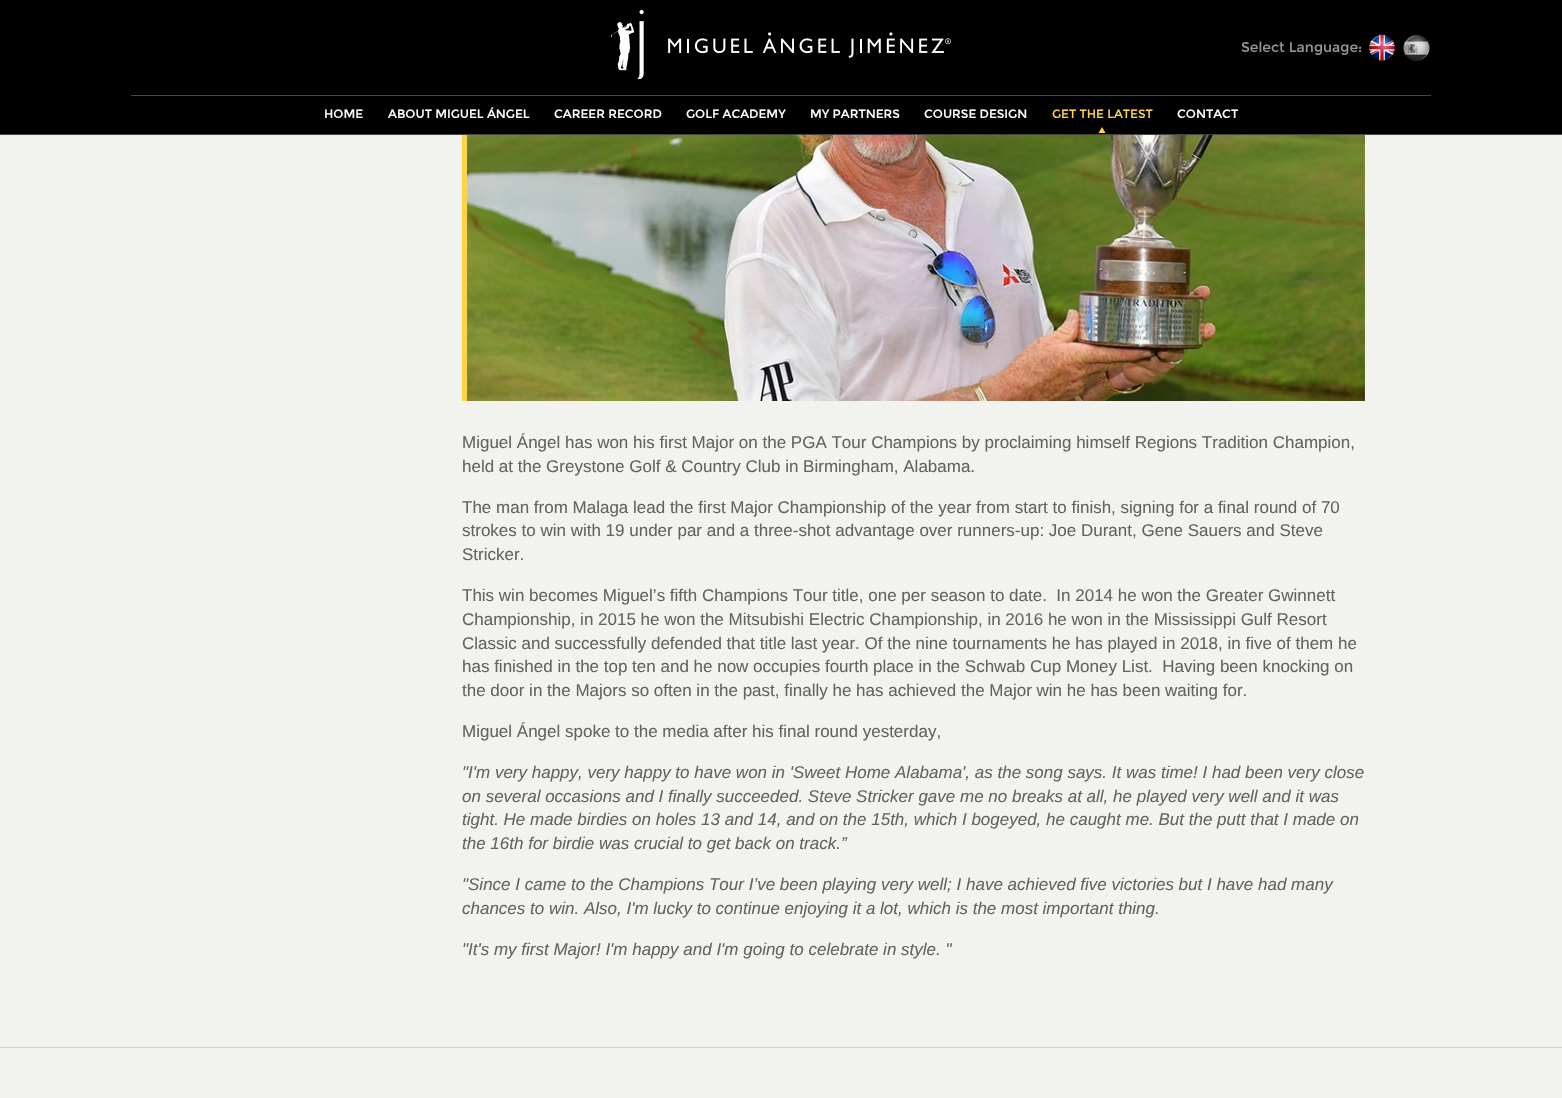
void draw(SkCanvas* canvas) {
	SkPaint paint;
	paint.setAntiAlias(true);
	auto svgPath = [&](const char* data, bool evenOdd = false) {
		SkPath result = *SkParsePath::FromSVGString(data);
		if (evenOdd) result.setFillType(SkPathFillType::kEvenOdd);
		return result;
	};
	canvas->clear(0xfff2f3ef);
	paint.setColor(0xff000000);
	canvas->drawRect(SkRect::MakeXYWH(0, 0, 1562, 134), paint);
	paint.setColor(0xff474546);
	canvas->drawRect(SkRect::MakeXYWH(0, 134, 1562, 1), paint);
	canvas->drawImageRect(SkImages::DeferredFromEncodedData(SkData::MakeFromFileName("img1.png")), SkRect::MakeXYWH(611, 10, 340, 69), SkSamplingOptions());
	SkFont f1(fontMgr->matchFamilyStyle("Montserrat", SkFontStyle::Normal()), 14);
	f1.setSubpixel(true);
	paint.setColor(0xff94979b);
	canvas->drawString("Select Language:", 1241, 52, f1, paint);
	canvas->drawImageRect(SkImages::DeferredFromEncodedData(SkData::MakeFromFileName("img2.png")), SkRect::MakeXYWH(1369, 34, 26, 27), SkSamplingOptions());
	canvas->drawImageRect(SkImages::DeferredFromEncodedData(SkData::MakeFromFileName("img3.png")), SkRect::MakeXYWH(1403, 35, 27, 27), SkSamplingOptions());
	paint.setColor(0xff474546);
	canvas->drawRect(SkRect::MakeXYWH(131, 95, 1300, 1), paint);
	SkFont f2(fontMgr->matchFamilyStyle("Montserrat", SkFontStyle::Normal()), 12);
	f2.setSubpixel(true);
	paint.setColor(0xffffffff);
	canvas->drawString("HOME", 324, 118, f2, paint);
	canvas->drawString("ABOUT MIGUEL ÁNGEL", 388, 118, f2, paint);
	canvas->drawString("CAREER RECORD", 554, 118, f2, paint);
	canvas->drawString("GOLF ACADEMY", 686, 118, f2, paint);
	canvas->drawString("MY PARTNERS", 810, 118, f2, paint);
	canvas->drawString("COURSE DESIGN", 924, 118, f2, paint);
	paint.setColor(0xffffd249);
	canvas->drawString("GET THE LATEST", 1052, 118, f2, paint);
	canvas->drawPath(svgPath("M1105.5 133H1098.5L1102 127Z"), paint);
	paint.setColor(0xffffffff);
	canvas->drawString("CONTACT", 1177, 118, f2, paint);
	paint.setColor(0xffffd249);
	canvas->drawRect(SkRect::MakeXYWH(462, 135, 5, 266), paint);
	canvas->drawImageRect(SkImages::DeferredFromEncodedData(SkData::MakeFromFileName("img4.png")), SkRect::MakeXYWH(467, 135, 898, 266), SkSamplingOptions());
	SkFont f3(fontMgr->matchFamilyStyle("Liberation Sans", SkFontStyle::Normal()), 17);
	f3.setSubpixel(true);
	paint.setColor(0xff646361);
	canvas->drawString("Miguel Ángel has won his first Major on the PGA Tour Champions by proclaiming himself Regions Tradition Champion,", 462, 448, f3, paint);
	canvas->drawString("held at the Greystone Golf & Country Club in Birmingham, Alabama.", 462, 472, f3, paint);
	canvas->drawString("The man from Malaga lead the first Major Championship of the year from start to finish, signing for a final round of 70", 462, 513, f3, paint);
	canvas->drawString("strokes to win with 19 under par and a three-shot advantage over runners-up: Joe Durant, Gene Sauers and Steve", 462, 536, f3, paint);
	canvas->drawString("Stricker.", 462, 560, f3, paint);
	canvas->drawString("This win becomes Miguel’s fifth Champions Tour title, one per season to date.  In 2014 he won the Greater Gwinnett", 462, 601, f3, paint);
	canvas->drawString("Championship, in 2015 he won the Mitsubishi Electric Championship, in 2016 he won in the Mississippi Gulf Resort", 462, 625, f3, paint);
	canvas->drawString("Classic and successfully defended that title last year. Of the nine tournaments he has played in 2018, in five of them he", 462, 649, f3, paint);
	canvas->drawString("has finished in the top ten and he now occupies fourth place in the Schwab Cup Money List.  Having been knocking on", 462, 672, f3, paint);
	canvas->drawString("the door in the Majors so often in the past, finally he has achieved the Major win he has been waiting for.", 462, 696, f3, paint);
	canvas->drawString("Miguel Ángel spoke to the media after his final round yesterday,", 462, 737, f3, paint);
	SkFont f4(fontMgr->matchFamilyStyle("Liberation Sans", SkFontStyle::Italic()), 17);
	f4.setSubpixel(true);
	canvas->drawString("\"I'm very happy, very happy to have won in 'Sweet Home Alabama', as the song says. It was time! I had been very close", 462, 778, f4, paint);
	canvas->drawString("on several occasions and I finally succeeded. Steve Stricker gave me no breaks at all, he played very well and it was", 462, 802, f4, paint);
	canvas->drawString("tight. He made birdies on holes 13 and 14, and on the 15th, which I bogeyed, he caught me. But the putt that I made on", 462, 825, f4, paint);
	canvas->drawString("the 16th for birdie was crucial to get back on track.”", 462, 849, f4, paint);
	canvas->drawString("\"Since I came to the Champions Tour I’ve been playing very well; I have achieved five victories but I have had many", 462, 890, f4, paint);
	canvas->drawString("chances to win. Also, I'm lucky to continue enjoying it a lot, which is the most important thing.", 462, 914, f4, paint);
	canvas->drawString("\"It's my first Major! I'm happy and I'm going to celebrate in style. \"", 462, 955, f4, paint);
	paint.setColor(0xffd1d1d1);
	canvas->drawRect(SkRect::MakeXYWH(0, 1047, 1562, 1), paint);
}
